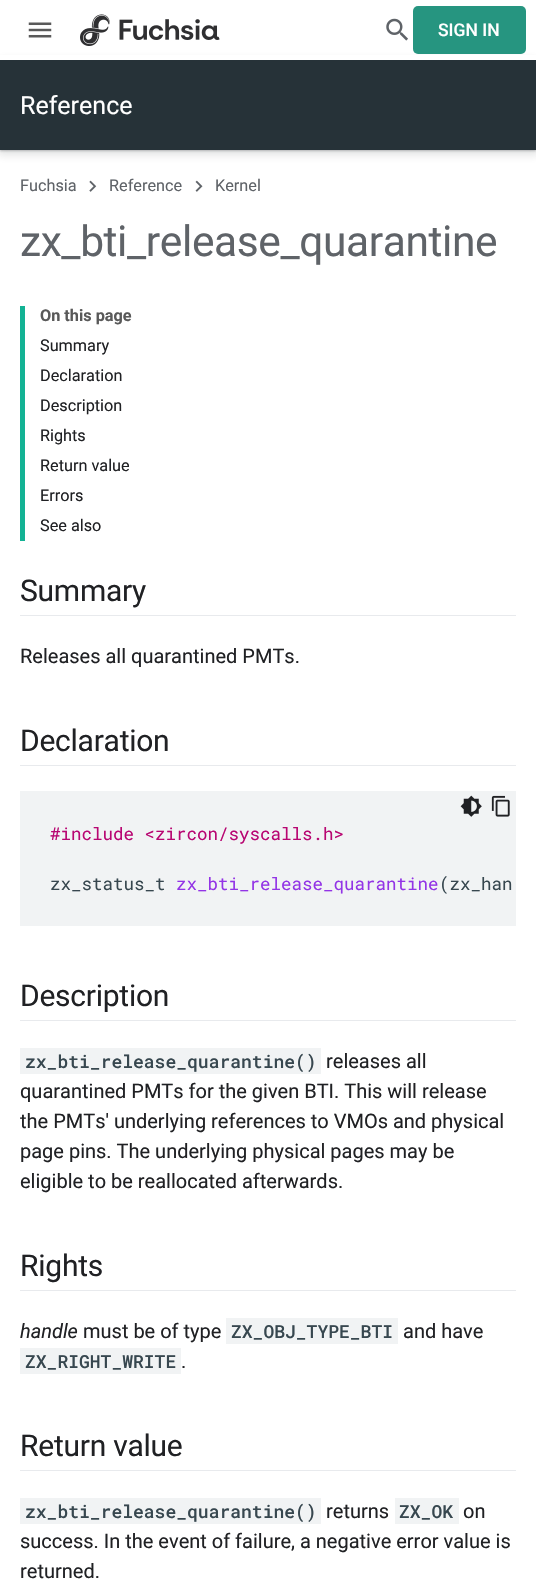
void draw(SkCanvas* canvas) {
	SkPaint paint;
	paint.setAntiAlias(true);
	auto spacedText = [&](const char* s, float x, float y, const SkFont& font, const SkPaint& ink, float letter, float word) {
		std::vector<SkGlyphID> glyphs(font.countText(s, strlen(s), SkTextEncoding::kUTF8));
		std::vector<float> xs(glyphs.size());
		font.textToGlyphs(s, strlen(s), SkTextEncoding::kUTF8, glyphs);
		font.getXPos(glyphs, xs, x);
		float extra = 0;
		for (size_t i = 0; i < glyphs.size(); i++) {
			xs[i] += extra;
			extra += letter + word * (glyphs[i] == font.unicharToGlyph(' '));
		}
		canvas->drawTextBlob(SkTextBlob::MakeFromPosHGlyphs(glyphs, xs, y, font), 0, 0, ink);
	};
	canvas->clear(0xffffffff);
	paint.setColor(0x263c4043);
	paint.setMaskFilter(SkMaskFilter::MakeBlur(kNormal_SkBlurStyle, 4));
	canvas->drawRect(SkRect::MakeXYWH(-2, 60, 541, 95), paint);
	paint.setMaskFilter(nullptr);
	paint.setColor(0x4d3c4043);
	paint.setMaskFilter(SkMaskFilter::MakeBlur(kNormal_SkBlurStyle, 1));
	canvas->drawRect(SkRect::MakeXYWH(0, 61, 536, 90), paint);
	paint.setMaskFilter(nullptr);
	paint.setColor(0xffffffff);
	canvas->drawRect(SkRect::MakeXYWH(0, 55, 536, 5), paint);
	canvas->drawImageRect(SkImages::DeferredFromEncodedData(SkData::MakeFromFileName("img1.png")), SkRect::MakeXYWH(28, 22, 24, 16), SkSamplingOptions());
	canvas->drawImageRect(SkImages::DeferredFromEncodedData(SkData::MakeFromFileName("img2.png")), SkRect::MakeXYWH(80, 14, 140, 32), SkSamplingOptions());
	canvas->drawImageRect(SkImages::DeferredFromEncodedData(SkData::MakeFromFileName("img3.png")), SkRect::MakeXYWH(386, 18, 22, 23), SkSamplingOptions());
	paint.setColor(0xff269580);
	canvas->drawRoundRect(SkRect::MakeXYWH(413, 6, 113, 48), 5, 5, paint);
	SkFont f1(fontMgr->matchFamilyStyle("Roboto", SkFontStyle(500, SkFontStyle::kNormal_Width, SkFontStyle::kUpright_Slant)), 17.5);
	f1.setSubpixel(true);
	paint.setColor(0xffffffff);
	canvas->drawString("SIGN IN", 438, 36, f1, paint);
	paint.setColor(0xff263238);
	canvas->drawRect(SkRect::MakeXYWH(0, 60, 536, 90), paint);
	SkFont f2(fontMgr->matchFamilyStyle("Roboto", SkFontStyle::Normal()), 25);
	f2.setSubpixel(true);
	paint.setColor(0xffffffff);
	canvas->drawString("Reference", 20, 114, f2, paint);
	SkFont f3(fontMgr->matchFamilyStyle("Roboto", SkFontStyle::Normal()), 16.25);
	f3.setSubpixel(true);
	paint.setColor(0xff5f6368);
	canvas->drawString("Fuchsia", 20, 191, f3, paint);
	canvas->drawImageRect(SkImages::DeferredFromEncodedData(SkData::MakeFromFileName("img4.png")), SkRect::MakeXYWH(89, 180, 8, 12), SkSamplingOptions());
	canvas->drawString("Reference", 109, 191, f3, paint);
	canvas->drawImageRect(SkImages::DeferredFromEncodedData(SkData::MakeFromFileName("img5.png")), SkRect::MakeXYWH(195, 180, 8, 12), SkSamplingOptions());
	canvas->drawString("Kernel", 215, 191, f3, paint);
	SkFont f4(fontMgr->matchFamilyStyle("Roboto", SkFontStyle::Normal()), 42.5);
	f4.setSubpixel(true);
	spacedText("zx_bti_release_quarantine", 20, 256, f4, paint, -0.4, 0);
	paint.setColor(0xff13b294);
	canvas->drawRect(SkRect::MakeXYWH(20, 306, 5, 235), paint);
	SkFont f5(fontMgr->matchFamilyStyle("Roboto", SkFontStyle::Bold()), 16.25);
	f5.setSubpixel(true);
	paint.setColor(0xff595959);
	canvas->drawString("On this page", 40, 321, f5, paint);
	paint.setColor(0xff202124);
	canvas->drawString("Summary", 40, 351, f3, paint);
	canvas->drawString("Declaration", 40, 381, f3, paint);
	canvas->drawString("Description", 40, 411, f3, paint);
	canvas->drawString("Rights", 40, 441, f3, paint);
	canvas->drawString("Return value", 40, 471, f3, paint);
	canvas->drawString("Errors", 40, 501, f3, paint);
	canvas->drawString("See also", 40, 531, f3, paint);
	paint.setColor(0xffe8eaed);
	canvas->drawRect(SkRect::MakeXYWH(20, 615, 496, 1), paint);
	SkFont f6(fontMgr->matchFamilyStyle("Roboto", SkFontStyle::Normal()), 30);
	f6.setSubpixel(true);
	paint.setColor(0xff202124);
	spacedText("Summary", 20, 601, f6, paint, -0.25, 0);
	SkFont f7(fontMgr->matchFamilyStyle("Roboto", SkFontStyle::Normal()), 20);
	f7.setSubpixel(true);
	canvas->drawString("Releases all quarantined PMTs.", 20, 663, f7, paint);
	paint.setColor(0xffe8eaed);
	canvas->drawRect(SkRect::MakeXYWH(20, 765, 496, 1), paint);
	paint.setColor(0xff202124);
	spacedText("Declaration", 20, 751, f6, paint, -0.25, 0);
	paint.setColor(0xfff1f3f4);
	canvas->drawRect(SkRect::MakeXYWH(20, 791, 496, 135), paint);
	canvas->drawImageRect(SkImages::DeferredFromEncodedData(SkData::MakeFromFileName("img6.png")), SkRect::MakeXYWH(460, 795, 22, 22), SkSamplingOptions());
	canvas->drawImageRect(SkImages::DeferredFromEncodedData(SkData::MakeFromFileName("img7.png")), SkRect::MakeXYWH(491, 795, 19, 22), SkSamplingOptions());
	SkFont f8(fontMgr->matchFamilyStyle("Roboto Mono", SkFontStyle::Normal()), 17.5);
	f8.setSubpixel(true);
	paint.setColor(0xffb80672);
	canvas->drawString("#include <zircon/syscalls.h>", 50, 840, f8, paint);
	paint.setColor(0xff37474f);
	canvas->drawString("zx_status_t", 50, 890, f8, paint);
	paint.setColor(0xff9334e6);
	canvas->drawString("zx_bti_release_quarantine", 176, 890, f8, paint);
	paint.setColor(0xff37474f);
	canvas->drawString("(zx_han", 439, 890, f8, paint);
	paint.setColor(0xffe8eaed);
	canvas->drawRect(SkRect::MakeXYWH(20, 1020, 496, 1), paint);
	paint.setColor(0xff202124);
	spacedText("Description", 20, 1006, f6, paint, -0.25, 0);
	paint.setColor(0xfff1f3f4);
	canvas->drawRect(SkRect::MakeXYWH(20, 1048, 301, 26), paint);
	SkFont f9(fontMgr->matchFamilyStyle("Roboto Mono", SkFontStyle(500, SkFontStyle::kNormal_Width, SkFontStyle::kUpright_Slant)), 18);
	f9.setSubpixel(true);
	paint.setColor(0xff37474f);
	canvas->drawString("zx_bti_release_quarantine()", 25, 1068, f9, paint);
	paint.setColor(0xff202124);
	canvas->drawString("releases all", 326, 1068, f7, paint);
	canvas->drawString("quarantined PMTs for the given BTI. This will release", 20, 1098, f7, paint);
	canvas->drawString("the PMTs' underlying references to VMOs and physical", 20, 1128, f7, paint);
	canvas->drawString("page pins. The underlying physical pages may be", 20, 1158, f7, paint);
	canvas->drawString("eligible to be reallocated afterwards.", 20, 1188, f7, paint);
	paint.setColor(0xffe8eaed);
	canvas->drawRect(SkRect::MakeXYWH(20, 1290, 496, 1), paint);
	paint.setColor(0xff202124);
	spacedText("Rights", 20, 1276, f6, paint, -0.25, 0);
	SkFont f10(fontMgr->matchFamilyStyle("Roboto", SkFontStyle::Italic()), 20);
	f10.setSubpixel(true);
	canvas->drawString("handle", 20, 1338, f10, paint);
	canvas->drawString("must be of type", 83, 1338, f7, paint);
	paint.setColor(0xfff1f3f4);
	canvas->drawRect(SkRect::MakeXYWH(226, 1318, 172, 26), paint);
	paint.setColor(0xff37474f);
	canvas->drawString("ZX_OBJ_TYPE_BTI", 231, 1338, f9, paint);
	paint.setColor(0xff202124);
	canvas->drawString("and have", 403, 1338, f7, paint);
	paint.setColor(0xfff1f3f4);
	canvas->drawRect(SkRect::MakeXYWH(20, 1348, 161, 26), paint);
	paint.setColor(0xff37474f);
	canvas->drawString("ZX_RIGHT_WRITE", 25, 1368, f9, paint);
	paint.setColor(0xff202124);
	canvas->drawString(".", 181, 1368, f7, paint);
	paint.setColor(0xffe8eaed);
	canvas->drawRect(SkRect::MakeXYWH(20, 1470, 496, 1), paint);
	paint.setColor(0xff202124);
	spacedText("Return value", 20, 1456, f6, paint, -0.25, 0);
	paint.setColor(0xfff1f3f4);
	canvas->drawRect(SkRect::MakeXYWH(20, 1498, 301, 26), paint);
	paint.setColor(0xff37474f);
	canvas->drawString("zx_bti_release_quarantine()", 25, 1518, f9, paint);
	paint.setColor(0xff202124);
	canvas->drawString("returns", 326, 1518, f7, paint);
	paint.setColor(0xfff1f3f4);
	canvas->drawRect(SkRect::MakeXYWH(395, 1498, 64, 26), paint);
	paint.setColor(0xff37474f);
	canvas->drawString("ZX_OK", 399, 1518, f9, paint);
	paint.setColor(0xff202124);
	canvas->drawString("on", 463, 1518, f7, paint);
	canvas->drawString("success. In the event of failure, a negative error value is", 20, 1548, f7, paint);
	canvas->drawString("returned.", 20, 1578, f7, paint);
}
